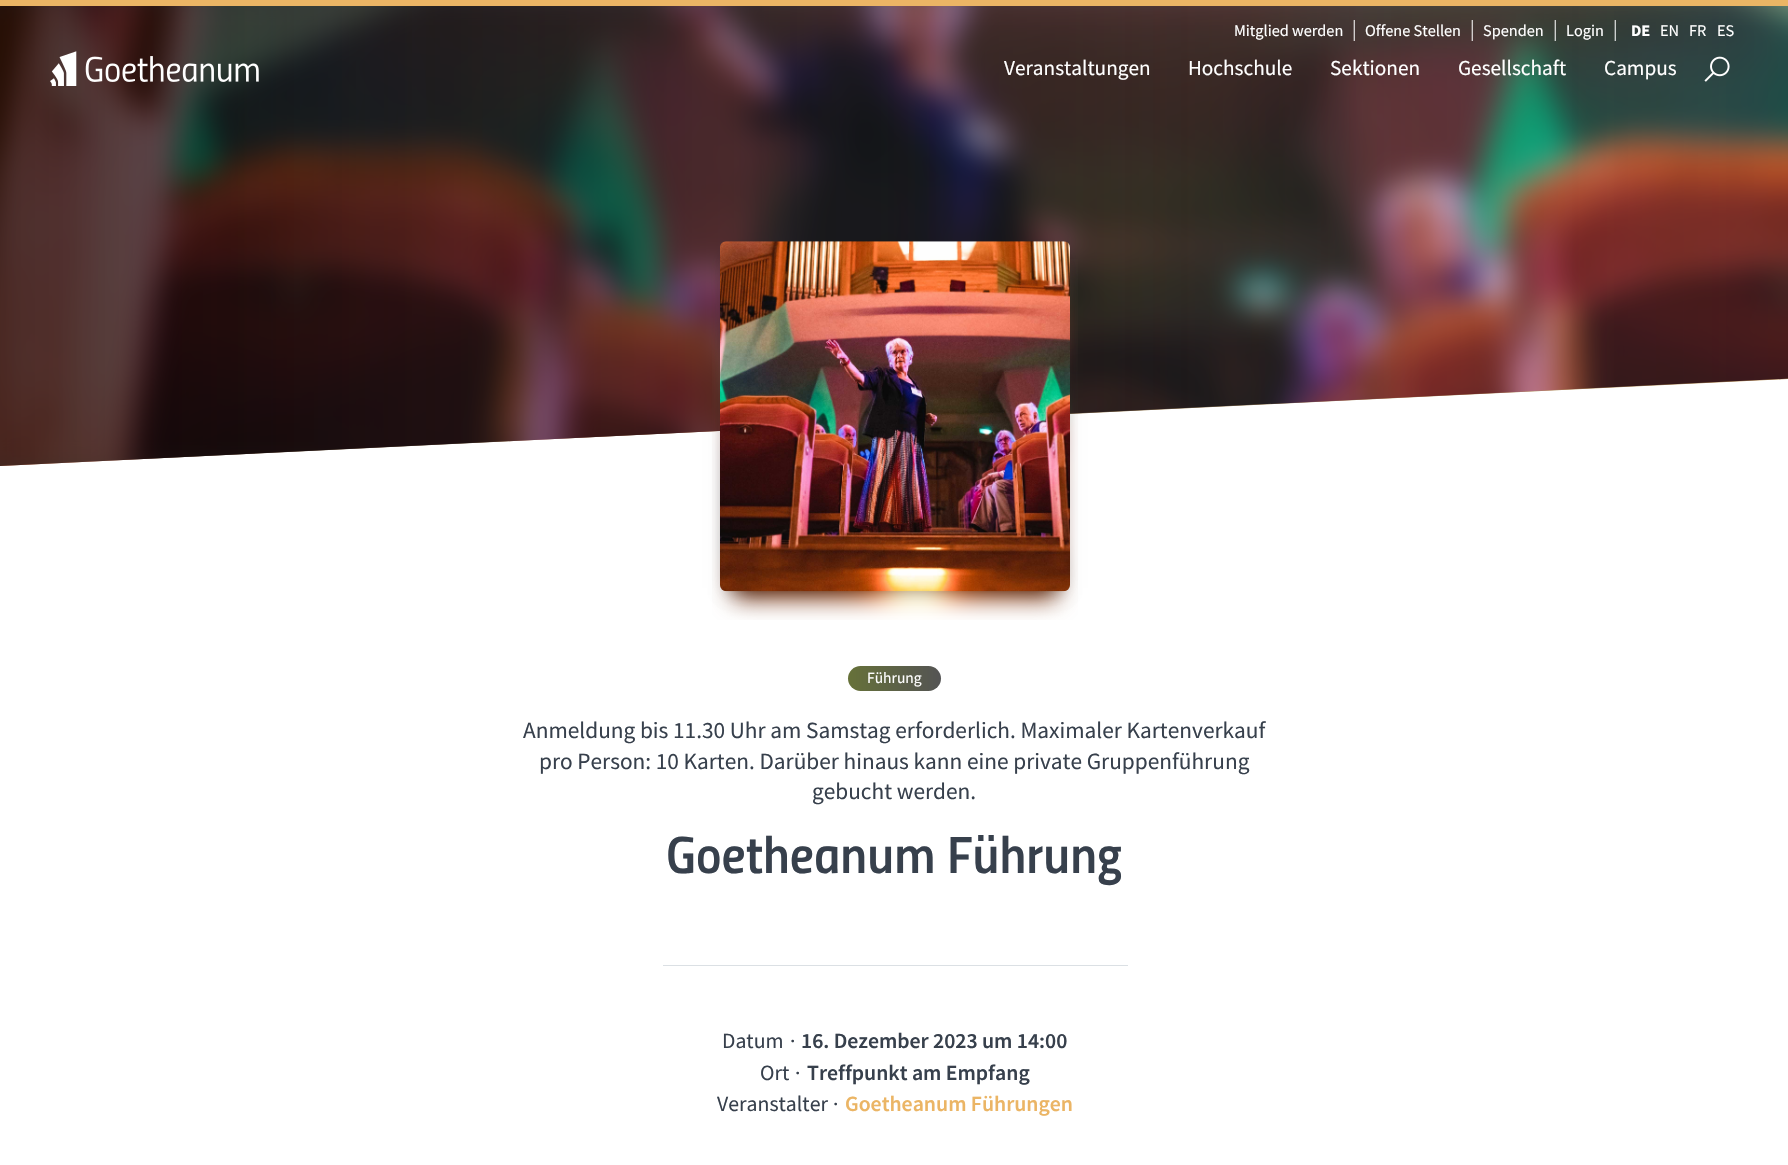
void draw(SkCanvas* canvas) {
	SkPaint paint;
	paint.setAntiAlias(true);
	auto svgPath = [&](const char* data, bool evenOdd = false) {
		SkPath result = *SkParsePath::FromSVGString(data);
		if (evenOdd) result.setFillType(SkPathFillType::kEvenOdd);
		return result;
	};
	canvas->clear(0xffffffff);
	{
		const SkColor colors[] = {0xff627288, 0xffebb565};
		const float stops[] = {0, 1};
		const SkPoint ends[] = {{781, -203}, {1008, 670}};
		paint.setShader(SkGradientShader::MakeLinear(ends, colors, stops, 2, SkTileMode::kClamp));
		paint.setAlpha(255);
	}
	canvas->drawPath(svgPath("M0 0V466L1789 379V0Z"), paint);
	canvas->drawImageRect(SkImages::DeferredFromEncodedData(SkData::MakeFromFileName("img3.png")), SkRect::MakeXYWH(0, 6, 1788, 460), SkSamplingOptions());
	{
		const SkColor colors[] = {0xb3000000, 0x3337404c};
		const float stops[] = {0, 1};
		const SkPoint ends[] = {{0, 233}, {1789, 233}};
		paint.setShader(SkGradientShader::MakeLinear(ends, colors, stops, 2, SkTileMode::kClamp));
		paint.setAlpha(255);
	}
	canvas->drawPath(svgPath("M0 0V466L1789 379V0Z"), paint);
	paint.setShader(nullptr);
	paint.setColor(0xffebb565);
	canvas->drawRect(SkRect::MakeXYWH(0, 0, 1788, 6), paint);
	SkFont f1(fontMgr->matchFamilyStyle("Source Sans Pro", SkFontStyle::Normal()), 16.25);
	f1.setSubpixel(true);
	paint.setColor(0xffffffff);
	canvas->drawString("Mitglied werden", 1234, 36, f1, paint);
	SkFont f2(fontMgr->matchFamilyStyle("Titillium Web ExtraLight", SkFontStyle(200, SkFontStyle::kNormal_Width, SkFontStyle::kUpright_Slant)), 22);
	f2.setSubpixel(true);
	canvas->drawString("|", 1352, 36, f2, paint);
	canvas->drawString("Offene Stellen", 1365, 36, f1, paint);
	canvas->drawString("|", 1470, 36, f2, paint);
	canvas->drawString("Spenden", 1483, 36, f1, paint);
	canvas->drawString("|", 1553, 36, f2, paint);
	canvas->drawString("Login", 1566, 36, f1, paint);
	canvas->drawString("|", 1613, 36, f2, paint);
	SkFont f3(fontMgr->matchFamilyStyle("Source Sans Pro", SkFontStyle::Bold()), 16.25);
	f3.setSubpixel(true);
	canvas->drawString("DE", 1631, 36, f3, paint);
	canvas->drawString("EN", 1660, 36, f1, paint);
	canvas->drawString("FR", 1689, 36, f1, paint);
	canvas->drawString("ES", 1717, 36, f1, paint);
	canvas->drawImageRect(SkImages::DeferredFromEncodedData(SkData::MakeFromFileName("img1.png")), SkRect::MakeXYWH(50, 51, 209, 35), SkSamplingOptions());
	SkFont f4(fontMgr->matchFamilyStyle("Source Sans Pro", SkFontStyle::Normal()), 21.25);
	f4.setSubpixel(true);
	canvas->drawString("Veranstaltungen", 1004, 75, f4, paint);
	canvas->drawString("Hochschule", 1188, 75, f4, paint);
	canvas->drawString("Sektionen", 1330, 75, f4, paint);
	canvas->drawString("Gesellschaft", 1458, 75, f4, paint);
	canvas->drawString("Campus", 1604, 75, f4, paint);
	canvas->drawImageRect(SkImages::DeferredFromEncodedData(SkData::MakeFromFileName("img2.png")), SkRect::MakeXYWH(1704, 56, 26, 26), SkSamplingOptions());
	canvas->drawImageRect(SkImages::DeferredFromEncodedData(SkData::MakeFromFileName("img5.png")), SkRect::MakeXYWH(712, 259, 366, 361), SkSamplingOptions());
	paint.setColor(0x33000000);
	paint.setMaskFilter(SkMaskFilter::MakeBlur(kNormal_SkBlurStyle, 9.5));
	canvas->drawRect(SkRect::MakeXYWH(730, 258, 330, 330), paint);
	paint.setMaskFilter(nullptr);
	paint.setColor(0x1a000000);
	paint.setMaskFilter(SkMaskFilter::MakeBlur(kNormal_SkBlurStyle, 6));
	canvas->drawRect(SkRect::MakeXYWH(726, 258, 338, 337), paint);
	paint.setMaskFilter(nullptr);
	canvas->drawImageRect(SkImages::DeferredFromEncodedData(SkData::MakeFromFileName("img4.png")), SkRect::MakeXYWH(720, 241, 350, 351), SkSamplingOptions());
	{
		const SkColor colors[] = {0xff667139, 0xff545454};
		const float stops[] = {0, 1};
		const SkPoint ends[] = {{848, 679}, {941, 679}};
		paint.setShader(SkGradientShader::MakeLinear(ends, colors, stops, 2, SkTileMode::kClamp));
		paint.setAlpha(255);
	}
	canvas->drawRoundRect(SkRect::MakeXYWH(848, 666, 93, 25), 12.5, 12.5, paint);
	SkFont f5(fontMgr->matchFamilyStyle("Source Sans Pro", SkFontStyle::Normal()), 15.5);
	f5.setSubpixel(true);
	paint.setShader(nullptr);
	paint.setColor(0xffffffff);
	canvas->drawString("Führung", 867, 683, f5, paint);
	SkFont f6(fontMgr->matchFamilyStyle("Source Sans Pro", SkFontStyle::Normal()), 23.3);
	f6.setSubpixel(true);
	paint.setColor(0xff37404c);
	canvas->drawString("Anmeldung bis 11.30 Uhr am Samstag erforderlich. Maximaler Kartenverkauf", 523, 738, f6, paint);
	canvas->drawString("pro Person: 10 Karten. Darüber hinaus kann eine private Gruppenführung", 539, 769, f6, paint);
	canvas->drawString("gebucht werden.", 812, 799, f6, paint);
	SkFont f7(fontMgr->matchFamilyStyle("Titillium", SkFontStyle(600, SkFontStyle::kNormal_Width, SkFontStyle::kItalic_Slant)), 52.5);
	f7.setSubpixel(true);
	canvas->drawString("Goetheanum Führung", 666, 873, f7, paint);
	paint.setColor(0xffdbe0e4);
	canvas->drawRect(SkRect::MakeXYWH(663, 965, 465, 1), paint);
	SkFont f8(fontMgr->matchFamilyStyle("Source Sans Pro", SkFontStyle::Normal()), 21.75);
	f8.setSubpixel(true);
	paint.setColor(0xff37404c);
	canvas->drawString("Datum", 722, 1048, f8, paint);
	canvas->drawString("·", 790, 1048, f8, paint);
	SkFont f9(fontMgr->matchFamilyStyle("Source Sans Pro", SkFontStyle(600, SkFontStyle::kNormal_Width, SkFontStyle::kUpright_Slant)), 21.75);
	f9.setSubpixel(true);
	canvas->drawString("16. Dezember 2023 um 14:00", 801, 1048, f9, paint);
	canvas->drawString("Ort", 760, 1080, f8, paint);
	canvas->drawString("·", 795, 1080, f8, paint);
	canvas->drawString("Treffpunkt am Empfang", 807, 1080, f9, paint);
	canvas->drawString("Veranstalter", 717, 1111, f8, paint);
	canvas->drawString("·", 833, 1111, f8, paint);
	paint.setColor(0xffebb565);
	canvas->drawString("Goetheanum Führungen", 845, 1111, f9, paint);
}
